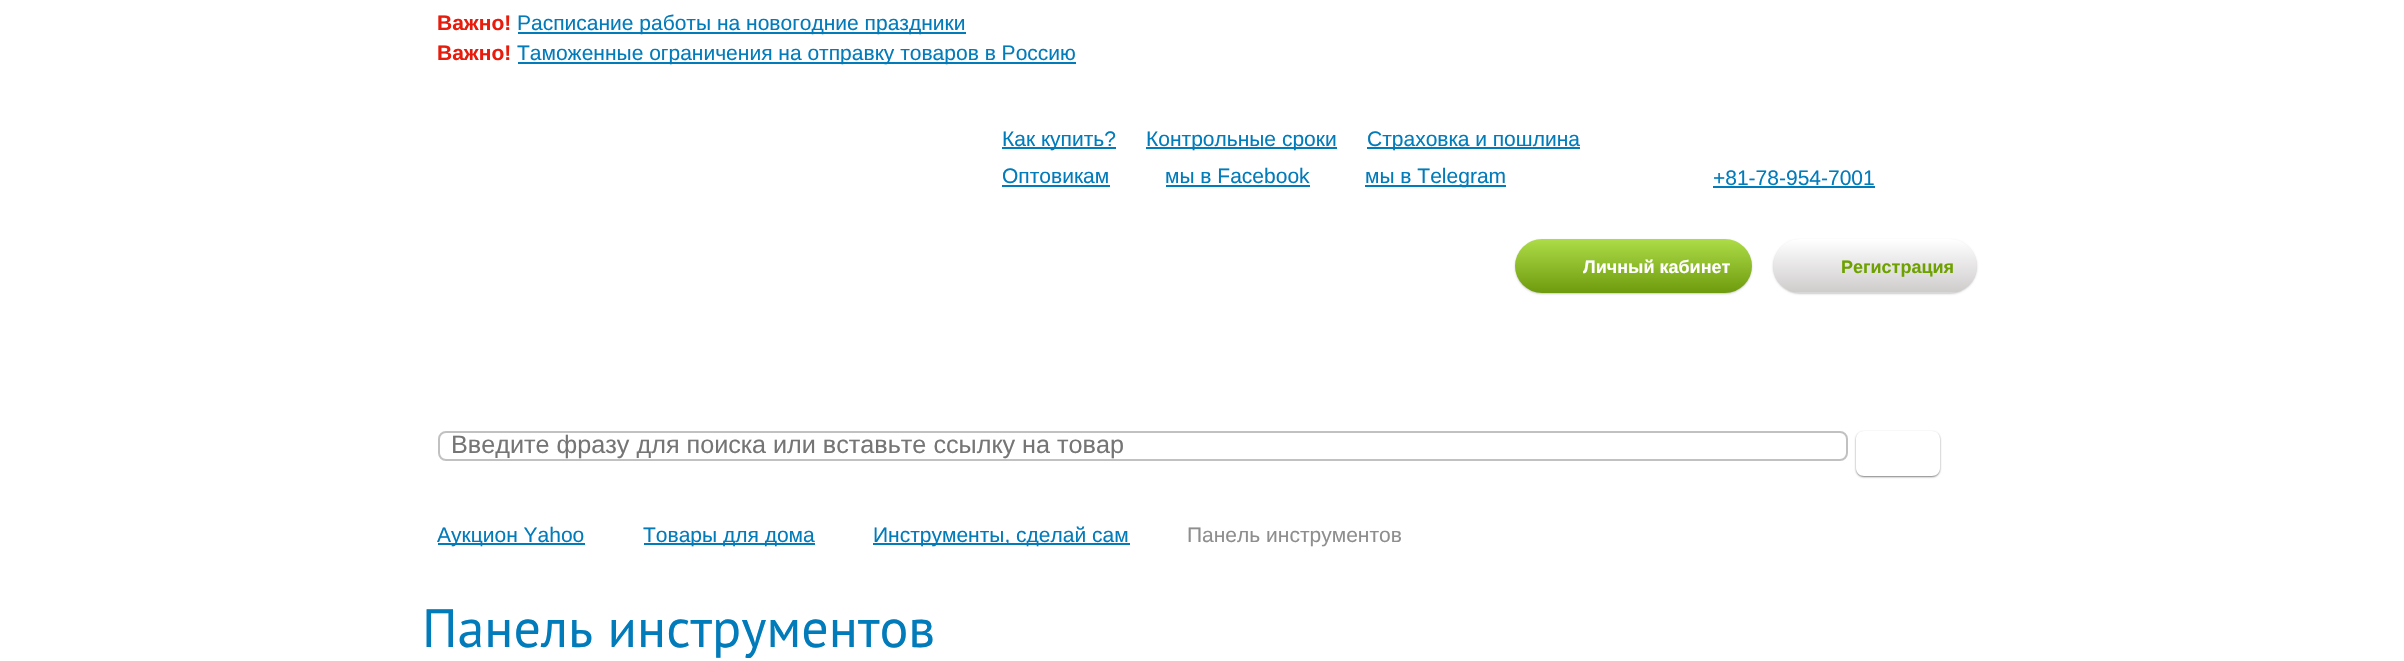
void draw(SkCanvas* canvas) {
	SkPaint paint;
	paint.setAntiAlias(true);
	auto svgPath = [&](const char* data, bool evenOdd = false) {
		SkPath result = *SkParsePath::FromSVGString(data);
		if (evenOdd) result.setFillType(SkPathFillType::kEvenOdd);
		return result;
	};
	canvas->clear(0xffffffff);
	SkFont f1(fontMgr->matchFamilyStyle("Liberation Sans", SkFontStyle::Bold()), 21);
	f1.setSubpixel(true);
	paint.setColor(0xffe81c0c);
	canvas->drawString("Важно!", 437, 30, f1, paint);
	paint.setColor(0xff027bbb);
	canvas->drawRect(SkRect::MakeXYWH(518, 32, 448, 2), paint);
	SkFont f2(fontMgr->matchFamilyStyle("Liberation Sans", SkFontStyle::Normal()), 21);
	f2.setSubpixel(true);
	canvas->drawString("Расписание работы на новогодние праздники", 517, 30, f2, paint);
	paint.setColor(0xffe81c0c);
	canvas->drawString("Важно!", 437, 60, f1, paint);
	paint.setColor(0xff027bbb);
	canvas->drawRect(SkRect::MakeXYWH(518, 62, 558, 2), paint);
	canvas->drawString("Таможенные ограничения на отправку товаров в Россию", 517, 60, f2, paint);
	canvas->drawRect(SkRect::MakeXYWH(1002, 147, 114, 2), paint);
	canvas->drawString("Как купить?", 1002, 146, f2, paint);
	canvas->drawRect(SkRect::MakeXYWH(1146, 147, 191, 2), paint);
	canvas->drawString("Контрольные сроки", 1146, 146, f2, paint);
	canvas->drawRect(SkRect::MakeXYWH(1367, 147, 213, 2), paint);
	canvas->drawString("Страховка и пошлина", 1367, 146, f2, paint);
	canvas->drawString("Оптовикам", 1002, 183, f2, paint);
	canvas->drawRect(SkRect::MakeXYWH(1002, 185, 108, 2), paint);
	canvas->drawString("мы в Facebook", 1165, 183, f2, paint);
	canvas->drawRect(SkRect::MakeXYWH(1166, 185, 144, 2), paint);
	canvas->drawRect(SkRect::MakeXYWH(1365, 185, 141, 2), paint);
	canvas->drawString("мы в Telegram", 1365, 183, f2, paint);
	canvas->drawString("+81-78-954-7001", 1713, 185, f2, paint);
	canvas->drawRect(SkRect::MakeXYWH(1713, 186, 162, 2), paint);
	paint.setColor(0x33000000);
	paint.setMaskFilter(SkMaskFilter::MakeBlur(kNormal_SkBlurStyle, 1));
	canvas->drawRoundRect(SkRect::MakeXYWH(1515, 240, 237, 54), 27, 27, paint);
	paint.setMaskFilter(nullptr);
	{
		const SkColor colors[] = {0xffaddc48, 0xff6e9b0d};
		const float stops[] = {0, 1};
		const SkPoint ends[] = {{1634, 239}, {1634, 293}};
		paint.setShader(SkGradientShader::MakeLinear(ends, colors, stops, 2, SkTileMode::kClamp));
		paint.setAlpha(255);
	}
	canvas->drawRoundRect(SkRect::MakeXYWH(1515, 239, 237, 54), 27, 27, paint);
	SkFont f3(fontMgr->matchFamilyStyle("Liberation Sans", SkFontStyle::Bold()), 18);
	f3.setSubpixel(true);
	paint.setShader(nullptr);
	paint.setColor(0xffffffff);
	canvas->drawString("Личный кабинет", 1583, 273, f3, paint);
	paint.setColor(0x33000000);
	paint.setMaskFilter(SkMaskFilter::MakeBlur(kNormal_SkBlurStyle, 1));
	canvas->drawRoundRect(SkRect::MakeXYWH(1773, 240, 204, 54), 27, 27, paint);
	paint.setMaskFilter(nullptr);
	{
		const SkColor colors[] = {0xffffffff, 0xffcfcccc, 0xffe2e2e2};
		const float stops[] = {0, 0.98, 1};
		const SkPoint ends[] = {{1875, 239}, {1875, 293}};
		paint.setShader(SkGradientShader::MakeLinear(ends, colors, stops, 3, SkTileMode::kClamp));
		paint.setAlpha(255);
	}
	canvas->drawRoundRect(SkRect::MakeXYWH(1773, 239, 204, 54), 27, 27, paint);
	paint.setShader(nullptr);
	paint.setColor(0xff6ea100);
	canvas->drawString("Регистрация", 1841, 273, f3, paint);
	paint.setStroke(true);
	paint.setStrokeWidth(2);
	paint.setColor(0xffc1c1c1);
	canvas->drawRoundRect(SkRect::MakeXYWH(439, 432, 1408, 28), 7, 7, paint);
	SkFont f4(fontMgr->matchFamilyStyle("Liberation Sans", SkFontStyle::Normal()), 25.2);
	f4.setSubpixel(true);
	paint.setStroke(false);
	paint.setColor(0xff757575);
	canvas->drawString("Введите фразу для поиска или вставьте ссылку на товар", 451, 453, f4, paint);
	canvas->save();
	canvas->clipPath(svgPath("M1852 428H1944V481H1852ZM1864 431H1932C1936.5 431 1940 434.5 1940 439V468C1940 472.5 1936.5 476 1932 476H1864C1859.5 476 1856 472.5 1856 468V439C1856 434.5 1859.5 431 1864 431Z", true), true);
	paint.setColor(0x80000000);
	paint.setMaskFilter(SkMaskFilter::MakeBlur(kNormal_SkBlurStyle, 1));
	canvas->drawRoundRect(SkRect::MakeXYWH(1856, 432, 84, 45), 8, 8, paint);
	paint.setMaskFilter(nullptr);
	canvas->restore();
	paint.setColor(0xff027bbb);
	canvas->drawRect(SkRect::MakeXYWH(438, 543, 147, 2), paint);
	canvas->drawString("Аукцион Yahoo", 437, 542, f2, paint);
	canvas->drawRect(SkRect::MakeXYWH(644, 543, 171, 2), paint);
	canvas->drawString("Товары для дома", 643, 542, f2, paint);
	canvas->drawRect(SkRect::MakeXYWH(873, 543, 257, 2), paint);
	canvas->drawString("Инструменты, сделай сам", 873, 542, f2, paint);
	paint.setColor(0xff8e8e8e);
	canvas->drawString("Панель инструментов", 1187, 542, f2, paint);
	SkFont f5(fontMgr->matchFamilyStyle("PT Sans", SkFontStyle::Normal()), 54);
	f5.setSubpixel(true);
	paint.setColor(0xff027bbb);
	canvas->drawString("Панель инструментов", 422, 647, f5, paint);
}
